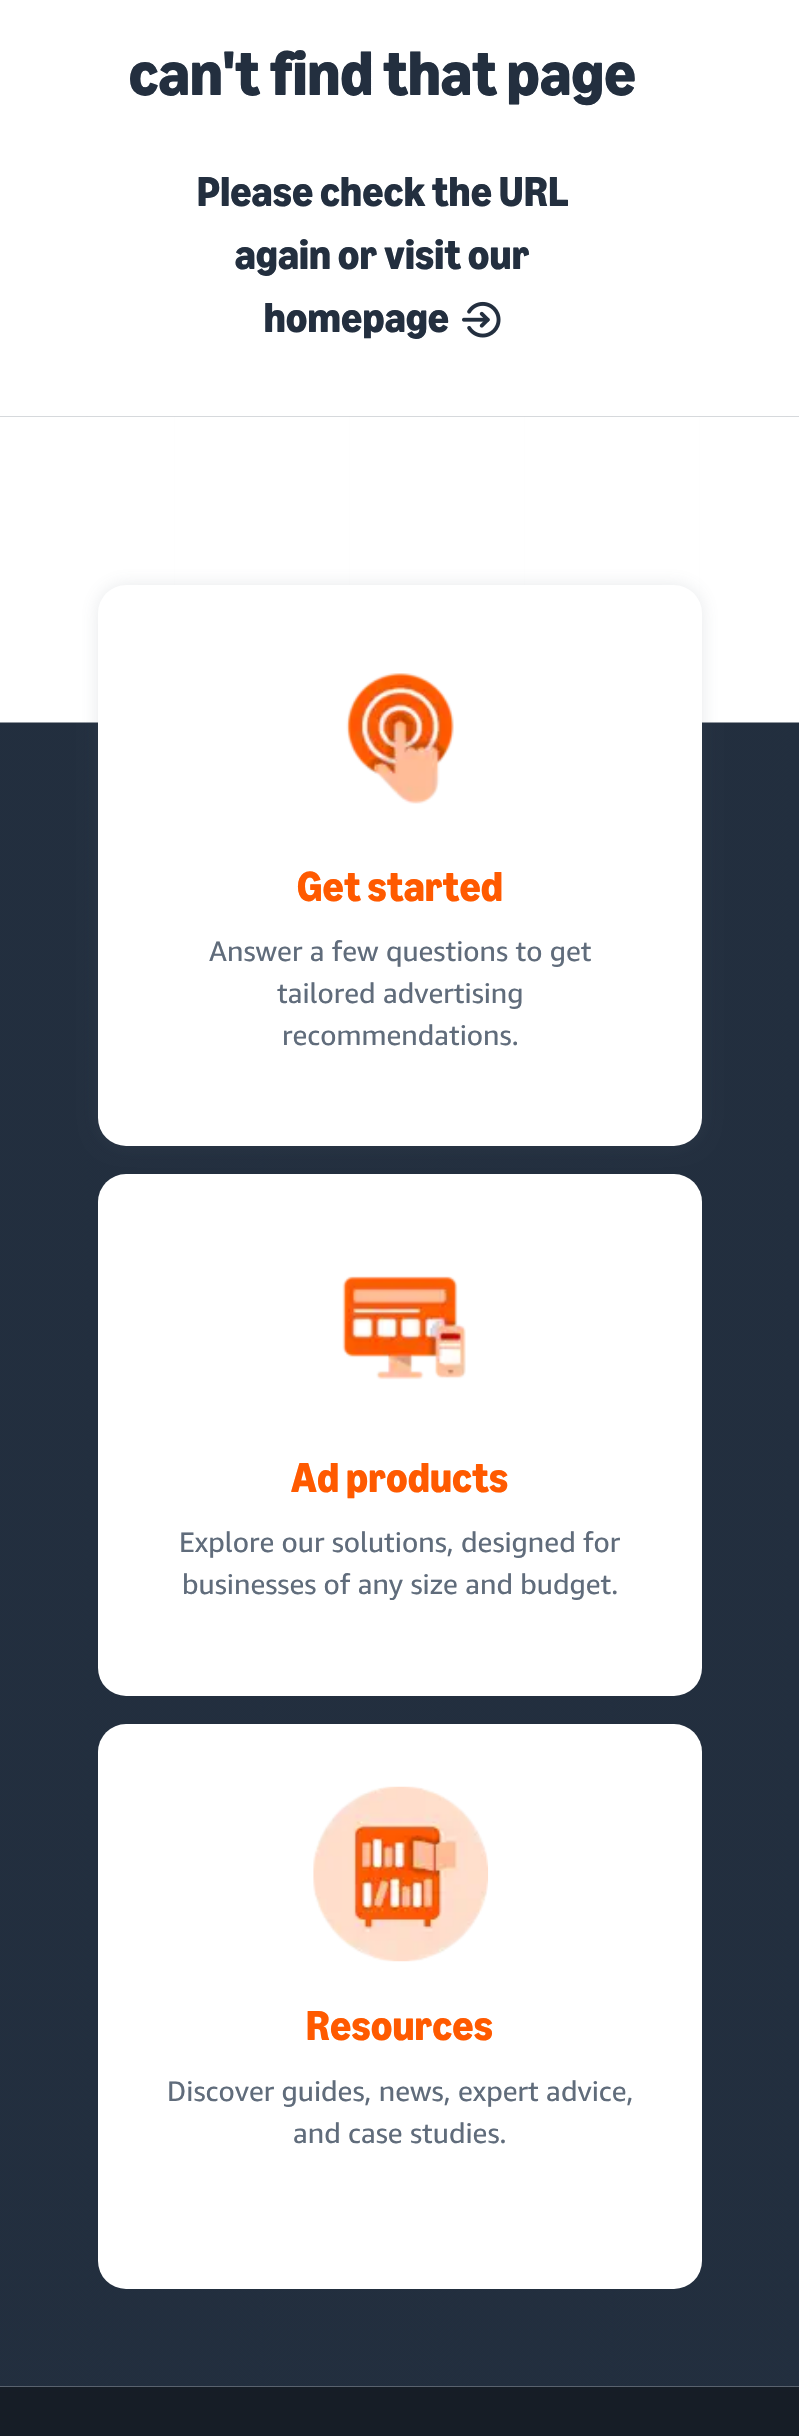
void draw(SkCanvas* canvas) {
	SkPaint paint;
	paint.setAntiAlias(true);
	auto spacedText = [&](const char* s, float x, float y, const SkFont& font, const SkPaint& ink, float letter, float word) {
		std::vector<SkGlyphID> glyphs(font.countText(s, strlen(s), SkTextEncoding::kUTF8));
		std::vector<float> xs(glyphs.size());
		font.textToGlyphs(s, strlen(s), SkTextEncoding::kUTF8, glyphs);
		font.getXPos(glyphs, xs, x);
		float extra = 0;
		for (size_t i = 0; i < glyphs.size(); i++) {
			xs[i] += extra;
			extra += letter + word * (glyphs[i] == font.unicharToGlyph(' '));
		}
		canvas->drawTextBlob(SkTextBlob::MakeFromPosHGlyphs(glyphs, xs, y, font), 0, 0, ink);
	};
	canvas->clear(0xffffffff);
	SkFont f1(fontMgr->matchFamilyStyle("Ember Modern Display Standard", SkFontStyle::Bold()), 63);
	f1.setSubpixel(true);
	paint.setColor(0xff232f3f);
	spacedText("can't find that page", 129, 95, f1, paint, 0.6, 0);
	SkFont f2(fontMgr->matchFamilyStyle("Ember Modern Display Standard", SkFontStyle::Bold()), 42);
	f2.setSubpixel(true);
	spacedText("Please check the URL", 197, 206, f2, paint, 0.6, 0);
	spacedText("again or visit our", 235, 269, f2, paint, 0.6, 0);
	spacedText("homepage", 264, 332, f2, paint, 0.6, 0);
	canvas->drawImageRect(SkImages::DeferredFromEncodedData(SkData::MakeFromFileName("img1.png")), SkRect::MakeXYWH(462, 301, 39, 37), SkSamplingOptions());
	canvas->drawImageRect(SkImages::DeferredFromEncodedData(SkData::MakeFromFileName("img2.png")), SkRect::MakeXYWH(0, 416, 799, 1971), SkSamplingOptions());
	paint.setColor(0x26606c7b);
	paint.setMaskFilter(SkMaskFilter::MakeBlur(kNormal_SkBlurStyle, 9));
	canvas->drawRoundRect(SkRect::MakeXYWH(98, 585, 604, 561), 28, 28, paint);
	paint.setMaskFilter(nullptr);
	paint.setColor(0xffffffff);
	canvas->drawRoundRect(SkRect::MakeXYWH(98, 585, 604, 561), 28, 28, paint);
	canvas->drawImageRect(SkImages::DeferredFromEncodedData(SkData::MakeFromFileName("img3.png")), SkRect::MakeXYWH(346, 673, 108, 131), SkSamplingOptions());
	paint.setColor(0xffff5a00);
	spacedText("Get started", 297, 901, f2, paint, 0.6, 0);
	SkFont f3(fontMgr->matchFamilyStyle("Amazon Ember", SkFontStyle::Normal()), 28);
	f3.setSubpixel(true);
	paint.setColor(0xff606c7b);
	canvas->drawString("Answer a few questions to get", 209, 961, f3, paint);
	canvas->drawString("tailored advertising", 277, 1003, f3, paint);
	canvas->drawString("recommendations.", 282, 1045, f3, paint);
	paint.setColor(0xffffffff);
	canvas->drawRoundRect(SkRect::MakeXYWH(98, 1174, 604, 522), 28, 28, paint);
	canvas->drawImageRect(SkImages::DeferredFromEncodedData(SkData::MakeFromFileName("img4.png")), SkRect::MakeXYWH(342, 1276, 124, 104), SkSamplingOptions());
	paint.setColor(0xffff5a00);
	spacedText("Ad products", 291, 1492, f2, paint, 0.6, 0);
	paint.setColor(0xff606c7b);
	canvas->drawString("Explore our solutions, designed for", 179, 1552, f3, paint);
	canvas->drawString("businesses of any size and budget.", 182, 1594, f3, paint);
	paint.setColor(0xffffffff);
	canvas->drawRoundRect(SkRect::MakeXYWH(98, 1724, 604, 565), 28, 28, paint);
	canvas->drawImageRect(SkImages::DeferredFromEncodedData(SkData::MakeFromFileName("img5.png")), SkRect::MakeXYWH(313, 1786, 176, 176), SkSamplingOptions());
	paint.setColor(0xffff5a00);
	spacedText("Resources", 306, 2040, f2, paint, 0.6, 0);
	paint.setColor(0xff606c7b);
	canvas->drawString("Discover guides, news, expert advice,", 167, 2101, f3, paint);
	canvas->drawString("and case studies.", 293, 2143, f3, paint);
	paint.setColor(0xff161d26);
	canvas->drawRect(SkRect::MakeXYWH(0, 2387, 799, 49), paint);
}
